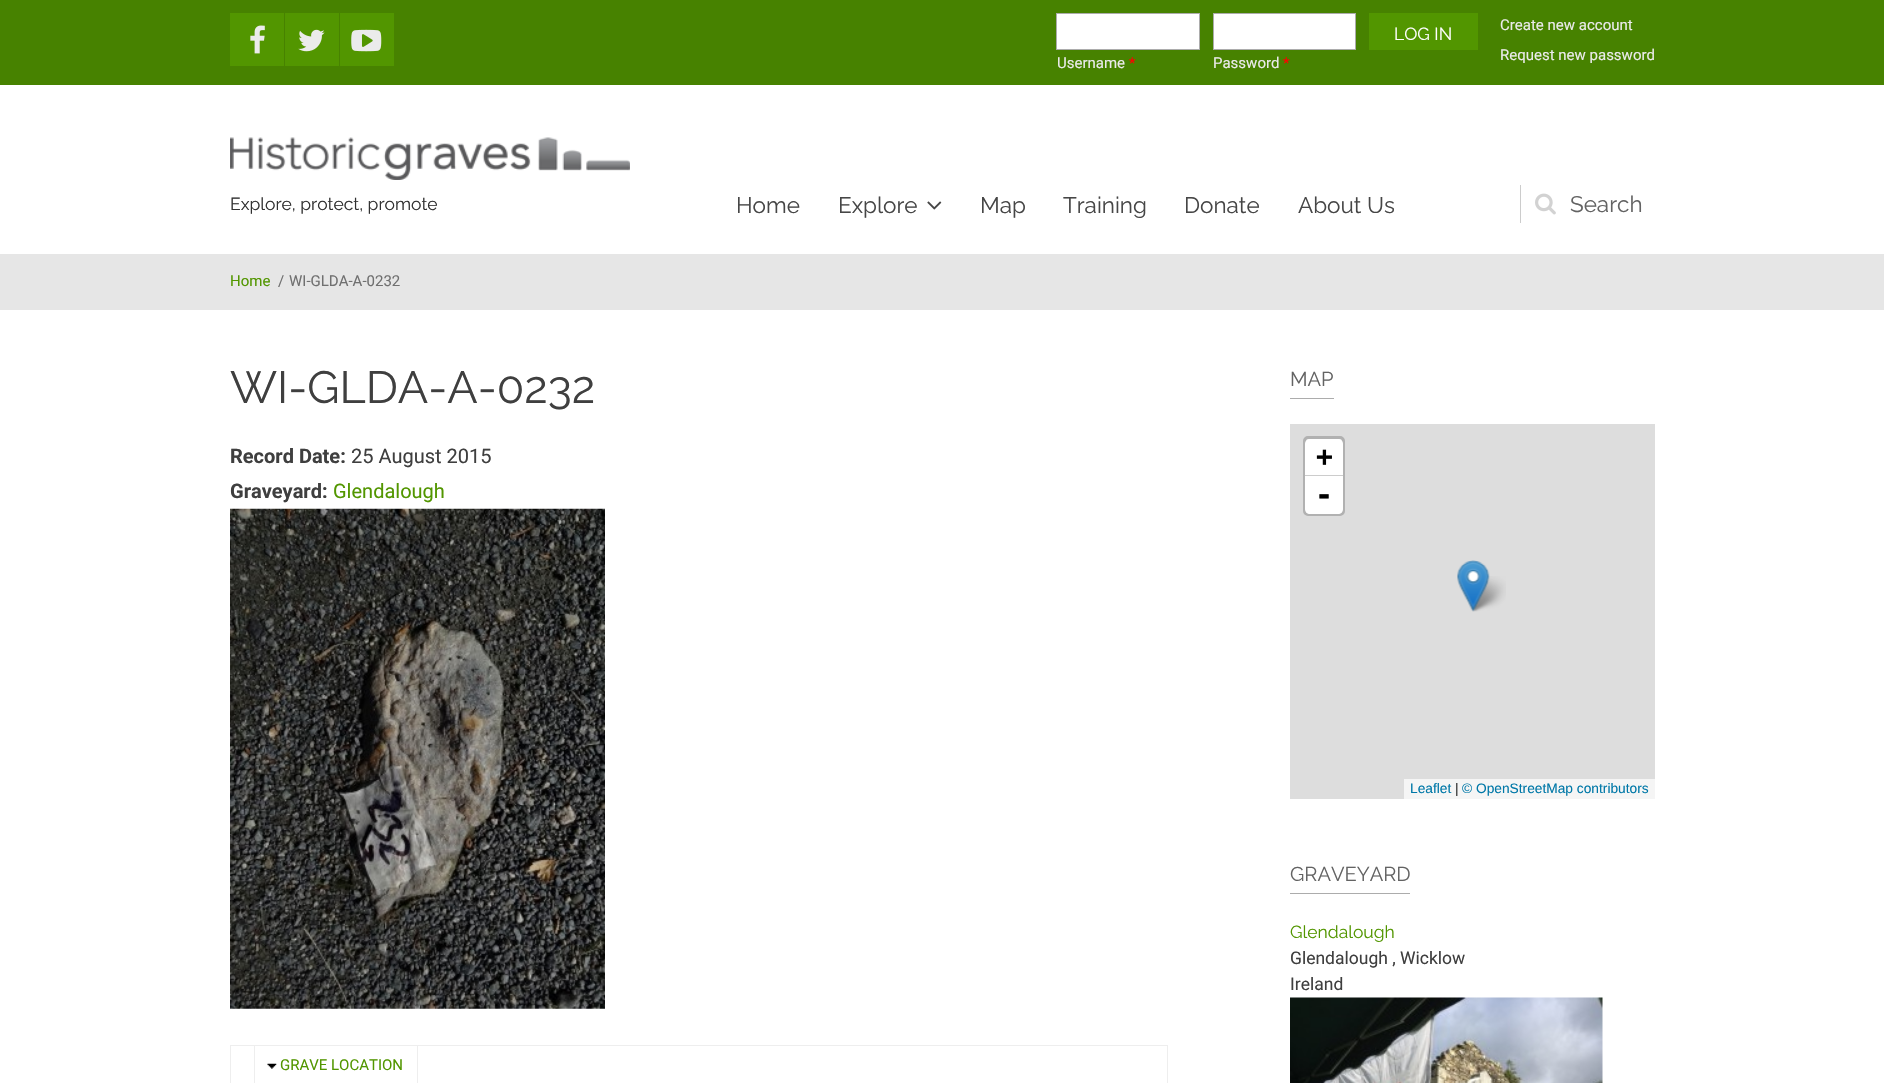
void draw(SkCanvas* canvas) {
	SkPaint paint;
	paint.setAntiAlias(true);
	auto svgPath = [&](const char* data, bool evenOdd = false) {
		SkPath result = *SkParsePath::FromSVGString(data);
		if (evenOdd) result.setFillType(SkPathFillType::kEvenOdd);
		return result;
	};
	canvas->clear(0xffffffff);
	paint.setColor(0xff478200);
	canvas->drawRect(SkRect::MakeXYWH(0, 0, 1884, 85), paint);
	paint.setColor(0xff529600);
	canvas->drawRect(SkRect::MakeXYWH(230, 13, 54, 53), paint);
	canvas->drawImageRect(SkImages::DeferredFromEncodedData(SkData::MakeFromFileName("img1.png")), SkRect::MakeXYWH(250, 25, 15, 29), SkSamplingOptions());
	canvas->drawRect(SkRect::MakeXYWH(285, 13, 54, 53), paint);
	canvas->drawImageRect(SkImages::DeferredFromEncodedData(SkData::MakeFromFileName("img2.png")), SkRect::MakeXYWH(298, 29, 27, 23), SkSamplingOptions());
	canvas->drawRect(SkRect::MakeXYWH(340, 13, 54, 53), paint);
	canvas->drawImageRect(SkImages::DeferredFromEncodedData(SkData::MakeFromFileName("img3.png")), SkRect::MakeXYWH(351, 29, 31, 23), SkSamplingOptions());
	canvas->drawRect(SkRect::MakeXYWH(1369, 13, 109, 37), paint);
	SkFont f1(fontMgr->matchFamilyStyle("Raleway", SkFontStyle::Normal()), 17.5);
	f1.setSubpixel(true);
	paint.setColor(0xffffffff);
	canvas->drawString("LOG IN", 1394, 40, f1, paint);
	SkFont f2(fontMgr->matchFamilyStyle("Roboto", SkFontStyle::Normal()), 15);
	f2.setSubpixel(true);
	paint.setColor(0xffebebeb);
	canvas->drawString("Create new account", 1500, 30, f2, paint);
	canvas->drawString("Request new password", 1500, 60, f2, paint);
	paint.setColor(0xffffffff);
	canvas->drawRect(SkRect::MakeXYWH(1056.5, 13.5, 143, 36), paint);
	paint.setStroke(true);
	paint.setStrokeWidth(1);
	paint.setColor(0xffacacac);
	canvas->drawRect(SkRect::MakeXYWH(1056.5, 13.5, 143, 36), paint);
	paint.setStroke(false);
	paint.setColor(0xffebebeb);
	canvas->drawString("Username", 1057, 68, f2, paint);
	paint.setColor(0xffff0000);
	canvas->drawString("*", 1129, 68, f2, paint);
	paint.setColor(0xffffffff);
	canvas->drawRect(SkRect::MakeXYWH(1213.5, 13.5, 142, 36), paint);
	paint.setStroke(true);
	paint.setColor(0xffacacac);
	canvas->drawRect(SkRect::MakeXYWH(1213.5, 13.5, 142, 36), paint);
	paint.setStroke(false);
	paint.setColor(0xffebebeb);
	canvas->drawString("Password", 1213, 68, f2, paint);
	paint.setColor(0xffff0000);
	canvas->drawString("*", 1283, 68, f2, paint);
	canvas->drawImageRect(SkImages::DeferredFromEncodedData(SkData::MakeFromFileName("img4.png")), SkRect::MakeXYWH(230, 137, 400, 43), SkSamplingOptions());
	paint.setColor(0xff313131);
	canvas->drawString("Explore, protect, promote", 230, 210, f1, paint);
	SkFont f3(fontMgr->matchFamilyStyle("Raleway", SkFontStyle::Normal()), 22.5);
	f3.setSubpixel(true);
	paint.setColor(0xff464646);
	canvas->drawString("Home", 736, 213, f3, paint);
	canvas->drawString("Explore", 838, 213, f3, paint);
	canvas->drawImageRect(SkImages::DeferredFromEncodedData(SkData::MakeFromFileName("img5.png")), SkRect::MakeXYWH(927, 201, 15, 9), SkSamplingOptions());
	canvas->drawString("Map", 980, 213, f3, paint);
	canvas->drawString("Training", 1063, 213, f3, paint);
	canvas->drawString("Donate", 1184, 213, f3, paint);
	canvas->drawString("About Us", 1298, 213, f3, paint);
	paint.setColor(0xffcccccc);
	canvas->drawRect(SkRect::MakeXYWH(1520, 185, 1, 38), paint);
	canvas->drawImageRect(SkImages::DeferredFromEncodedData(SkData::MakeFromFileName("img6.png")), SkRect::MakeXYWH(1535, 193, 21, 22), SkSamplingOptions());
	paint.setColor(0xff636363);
	canvas->drawString("Search", 1570, 212, f3, paint);
	paint.setColor(0xffe6e6e6);
	canvas->drawRect(SkRect::MakeXYWH(0, 254, 1884, 56), paint);
	paint.setColor(0xff529600);
	canvas->drawString("Home", 230, 286, f2, paint);
	paint.setColor(0xff707070);
	canvas->drawString("/", 278, 286, f2, paint);
	canvas->drawString("WI-GLDA-A-0232", 289, 286, f2, paint);
	SkFont f4(fontMgr->matchFamilyStyle("Raleway", SkFontStyle::Normal()), 45);
	f4.setSubpixel(true);
	paint.setColor(0xff3f3f3f);
	canvas->drawString("WI-GLDA-A-0232", 230, 403, f4, paint);
	SkFont f5(fontMgr->matchFamilyStyle("Roboto", SkFontStyle::Bold()), 20);
	f5.setSubpixel(true);
	canvas->drawString("Record Date:", 230, 463, f5, paint);
	SkFont f6(fontMgr->matchFamilyStyle("Roboto", SkFontStyle::Normal()), 20);
	f6.setSubpixel(true);
	canvas->drawString("25 August 2015", 351, 463, f6, paint);
	canvas->drawString("Graveyard:", 230, 498, f5, paint);
	paint.setColor(0xff529600);
	canvas->drawString("Glendalough", 333, 498, f6, paint);
	canvas->drawImageRect(SkImages::DeferredFromEncodedData(SkData::MakeFromFileName("img7.png")), SkRect::MakeXYWH(230, 508, 375, 501), SkSamplingOptions());
	paint.setStroke(true);
	paint.setColor(0xffeeeeee);
	canvas->drawRect(SkRect::MakeXYWH(230.5, 1045.5, 937, 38), paint);
	canvas->drawRect(SkRect::MakeXYWH(254.5, 1045.5, 163, 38), paint);
	canvas->drawImageRect(SkImages::DeferredFromEncodedData(SkData::MakeFromFileName("img8.png")), SkRect::MakeXYWH(267, 1063, 10, 6), SkSamplingOptions());
	paint.setStroke(false);
	paint.setColor(0xff529600);
	canvas->drawString("GRAVE LOCATION", 280, 1070, f2, paint);
	paint.setColor(0xffacacac);
	canvas->drawRect(SkRect::MakeXYWH(1290, 398, 44, 1), paint);
	SkFont f7(fontMgr->matchFamilyStyle("Raleway", SkFontStyle::Normal()), 20);
	f7.setSubpixel(true);
	paint.setColor(0xff636363);
	canvas->drawString("MAP", 1290, 386, f7, paint);
	paint.setColor(0xffdddddd);
	canvas->drawRect(SkRect::MakeXYWH(1290, 424, 365, 375), paint);
	paint.setStroke(true);
	paint.setStrokeWidth(3);
	paint.setColor(0xffb1b1b1);
	canvas->drawRoundRect(SkRect::MakeXYWH(1304.5, 437.5, 39, 77), 3.5, 3.5, paint);
	paint.setStroke(false);
	paint.setColor(0xffffffff);
	canvas->drawPath(svgPath("M1310 439H1338C1341 439 1343 441 1343 444V476H1305V444C1305 441 1307 439 1310 439Z"), paint);
	paint.setColor(0xffcccccc);
	canvas->drawRect(SkRect::MakeXYWH(1305, 475, 38, 1), paint);
	SkFont f8(fontMgr->matchFamilyStyle("DejaVu Sans Mono", SkFontStyle::Bold()), 28);
	f8.setSubpixel(true);
	paint.setColor(0xff000000);
	canvas->drawString("+", 1316, 466, f8, paint);
	paint.setColor(0xffffffff);
	canvas->drawPath(svgPath("M1305 476H1343V509C1343 512 1341 514 1338 514H1310C1307 514 1305 512 1305 509Z"), paint);
	SkFont f9(fontMgr->matchFamilyStyle("DejaVu Sans Mono", SkFontStyle::Bold()), 30);
	f9.setSubpixel(true);
	paint.setColor(0xff000000);
	canvas->drawString("-", 1315, 505, f9, paint);
	paint.setColor(0xfff5f5f5);
	canvas->drawRect(SkRect::MakeXYWH(1404, 779, 251, 20), paint);
	SkFont f10(fontMgr->matchFamilyStyle("Liberation Sans", SkFontStyle::Normal()), 13.75);
	f10.setSubpixel(true);
	paint.setColor(0xff0078a8);
	canvas->drawString("Leaflet", 1410, 793, f10, paint);
	paint.setColor(0xff313131);
	canvas->drawString("|", 1455, 793, f10, paint);
	paint.setColor(0xff0078a8);
	canvas->drawString("© OpenStreetMap contributors", 1462, 793, f10, paint);
	canvas->drawImageRect(SkImages::DeferredFromEncodedData(SkData::MakeFromFileName("img10.png")), SkRect::MakeXYWH(1469, 576, 37, 36), SkSamplingOptions());
	canvas->drawImageRect(SkImages::DeferredFromEncodedData(SkData::MakeFromFileName("img9.png")), SkRect::MakeXYWH(1457, 560, 33, 52), SkSamplingOptions());
	paint.setColor(0xffacacac);
	canvas->drawRect(SkRect::MakeXYWH(1290, 893, 120, 1), paint);
	paint.setColor(0xff636363);
	canvas->drawString("GRAVEYARD", 1290, 881, f7, paint);
	paint.setColor(0xff529600);
	canvas->drawString("Glendalough", 1290, 938, f1, paint);
	SkFont f11(fontMgr->matchFamilyStyle("Roboto", SkFontStyle::Normal()), 17.5);
	f11.setSubpixel(true);
	paint.setColor(0xff3f3f3f);
	canvas->drawString("Glendalough , Wicklow", 1290, 964, f11, paint);
	canvas->drawString("Ireland", 1290, 990, f11, paint);
	canvas->drawImageRect(SkImages::DeferredFromEncodedData(SkData::MakeFromFileName("img11.png")), SkRect::MakeXYWH(1290, 997, 313, 86), SkSamplingOptions());
}
